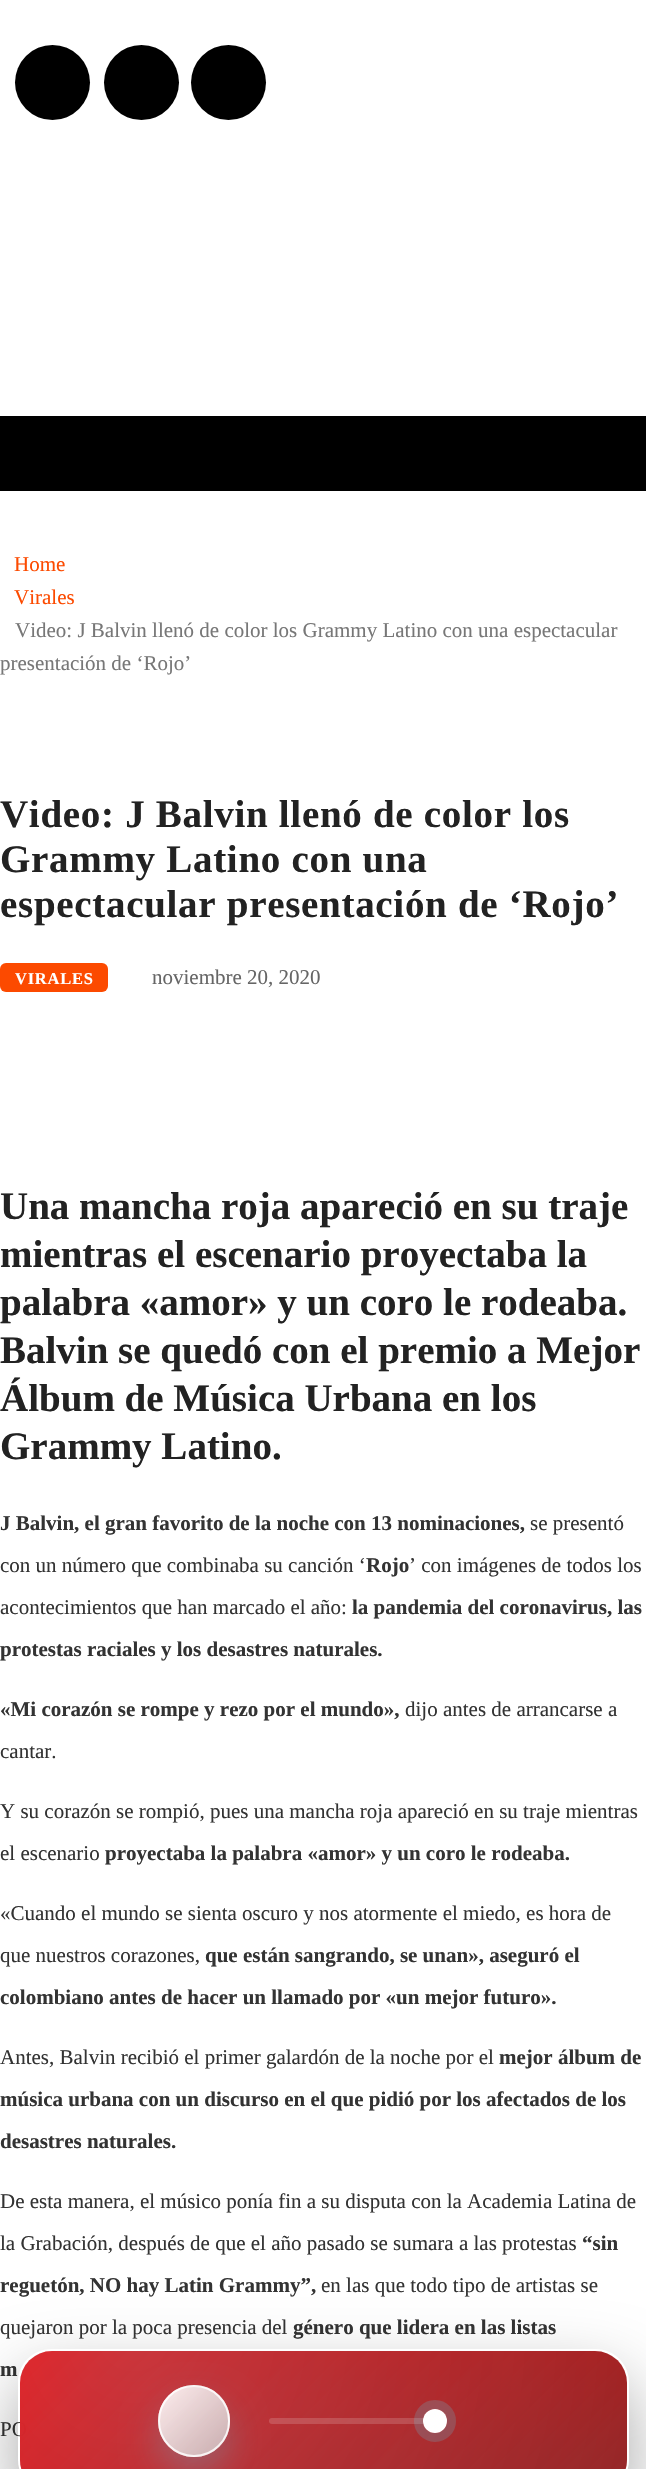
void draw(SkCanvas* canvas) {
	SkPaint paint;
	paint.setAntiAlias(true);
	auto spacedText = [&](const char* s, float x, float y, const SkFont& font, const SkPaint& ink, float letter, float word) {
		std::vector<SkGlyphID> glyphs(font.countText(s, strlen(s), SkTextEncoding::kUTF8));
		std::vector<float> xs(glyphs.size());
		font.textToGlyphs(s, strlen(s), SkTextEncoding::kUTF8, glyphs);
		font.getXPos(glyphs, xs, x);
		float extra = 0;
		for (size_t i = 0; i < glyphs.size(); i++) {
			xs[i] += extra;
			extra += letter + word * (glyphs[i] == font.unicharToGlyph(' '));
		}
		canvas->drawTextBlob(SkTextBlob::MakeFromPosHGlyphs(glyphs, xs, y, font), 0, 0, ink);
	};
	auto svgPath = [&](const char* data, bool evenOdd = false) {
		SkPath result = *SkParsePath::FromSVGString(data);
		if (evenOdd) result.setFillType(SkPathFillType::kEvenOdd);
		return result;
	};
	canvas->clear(0xffffffff);
	paint.setColor(0xff000000);
	canvas->drawCircle(52.5, 82.5, 37.5, paint);
	canvas->drawCircle(141.5, 82.5, 37.5, paint);
	canvas->drawCircle(228.5, 82.5, 37.5, paint);
	canvas->drawRect(SkRect::MakeXYWH(0, 416, 646, 75), paint);
	SkFont f1(fontMgr->matchFamilyStyle("Liberation Serif", SkFontStyle::Normal()), 21);
	f1.setSubpixel(true);
	paint.setColor(0xfffc4a00);
	canvas->drawString("Home", 14, 571, f1, paint);
	canvas->drawString("Virales", 14, 604, f1, paint);
	paint.setColor(0xff777777);
	canvas->drawString("Video: J Balvin llenó de color los Grammy Latino con una espectacular", 15, 637, f1, paint);
	canvas->drawString("presentación de ‘Rojo’", 0, 670, f1, paint);
	SkFont f2(fontMgr->matchFamilyStyle("Liberation Serif", SkFontStyle::Bold()), 39);
	f2.setSubpixel(true);
	paint.setColor(0xff222222);
	spacedText("Video: J Balvin llenó de color los", 0, 827, f2, paint, 0.7, 0);
	spacedText("Grammy Latino con una", 0, 872, f2, paint, 0.7, 0);
	spacedText("espectacular presentación de ‘Rojo’", 0, 917, f2, paint, 0.7, 0);
	paint.setColor(0xfffc4a00);
	canvas->drawRoundRect(SkRect::MakeXYWH(0, 963, 108, 29), 6, 6, paint);
	SkFont f3(fontMgr->matchFamilyStyle("Liberation Serif", SkFontStyle::Bold()), 16.5);
	f3.setSubpixel(true);
	paint.setColor(0xffffffff);
	spacedText("VIRALES", 15, 984, f3, paint, 0.75, 0);
	paint.setColor(0xff666666);
	canvas->drawString("noviembre 20, 2020", 152, 984, f1, paint);
	paint.setColor(0xff222222);
	canvas->drawString("Una mancha roja apareció en su traje", 0, 1219, f2, paint);
	canvas->drawString("mientras el escenario proyectaba la", 0, 1267, f2, paint);
	canvas->drawString("palabra «amor» y un coro le rodeaba.", 0, 1315, f2, paint);
	canvas->drawString("Balvin se quedó con el premio a Mejor", 0, 1363, f2, paint);
	canvas->drawString("Álbum de Música Urbana en los", 0, 1411, f2, paint);
	canvas->drawString("Grammy Latino.", 0, 1459, f2, paint);
	SkFont f4(fontMgr->matchFamilyStyle("Liberation Serif", SkFontStyle::Bold()), 21);
	f4.setSubpixel(true);
	paint.setColor(0xff333333);
	canvas->drawString("J Balvin, el gran favorito de la noche con 13 nominaciones,", 0, 1530, f4, paint);
	canvas->drawString("se presentó", 530, 1530, f1, paint);
	canvas->drawString("con un número que combinaba su canción ‘", 0, 1572, f1, paint);
	canvas->drawString("Rojo", 366, 1572, f4, paint);
	canvas->drawString("’ con imágenes de todos los", 409, 1572, f1, paint);
	canvas->drawString("acontecimientos que han marcado el año:", 0, 1614, f1, paint);
	canvas->drawString("la pandemia del coronavirus, las", 352, 1614, f4, paint);
	canvas->drawString("protestas raciales y los desastres naturales.", 0, 1656, f4, paint);
	canvas->drawString("«Mi corazón se rompe y rezo por el mundo»,", 0, 1716, f4, paint);
	canvas->drawString("dijo antes de arrancarse a", 405, 1716, f1, paint);
	canvas->drawString("cantar.", 0, 1758, f1, paint);
	canvas->drawString("Y su corazón se rompió, pues una mancha roja apareció en su traje mientras", 0, 1818, f1, paint);
	canvas->drawString("el escenario", 0, 1860, f1, paint);
	canvas->drawString("proyectaba la palabra «amor» y un coro le rodeaba.", 105, 1860, f4, paint);
	canvas->drawString("«Cuando el mundo se sienta oscuro y nos atormente el miedo, es hora de", 0, 1920, f1, paint);
	canvas->drawString("que nuestros corazones,", 0, 1962, f1, paint);
	canvas->drawString("que están sangrando, se unan», aseguró el", 205, 1962, f4, paint);
	canvas->drawString("colombiano antes de hacer un llamado por «un mejor futuro».", 0, 2004, f4, paint);
	canvas->drawString("Antes, Balvin recibió el primer galardón de la noche por el", 0, 2064, f1, paint);
	canvas->drawString("mejor álbum de", 499, 2064, f4, paint);
	canvas->drawString("música urbana con un discurso en el que pidió por los afectados de los", 0, 2106, f4, paint);
	canvas->drawString("desastres naturales.", 0, 2148, f4, paint);
	canvas->drawString("De esta manera, el músico ponía fin a su disputa con la Academia Latina de", 0, 2208, f1, paint);
	canvas->drawString("la Grabación, después de que el año pasado se sumara a las protestas", 0, 2250, f1, paint);
	canvas->drawString("“sin", 582, 2250, f4, paint);
	canvas->drawString("reguetón, NO hay Latin Grammy”,", 0, 2292, f4, paint);
	canvas->drawString("en las que todo tipo de artistas se", 321, 2292, f1, paint);
	canvas->drawString("quejaron por la poca presencia del", 0, 2334, f1, paint);
	canvas->drawString("género que lidera en las listas", 293, 2334, f4, paint);
	canvas->drawString("m", 0, 2376, f4, paint);
	canvas->drawString("PO", 0, 2436, f1, paint);
	canvas->save();
	canvas->clipPath(svgPath("M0 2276H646V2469H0ZM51 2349H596C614 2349 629 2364 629 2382V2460C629 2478 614 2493 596 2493H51C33 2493 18 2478 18 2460V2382C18 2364 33 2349 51 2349Z", true), true);
	paint.setColor(0x59000000);
	paint.setMaskFilter(SkMaskFilter::MakeBlur(kNormal_SkBlurStyle, 34));
	canvas->drawRoundRect(SkRect::MakeXYWH(18, 2379, 611, 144), 33, 33, paint);
	paint.setMaskFilter(nullptr);
	canvas->restore();
	{
		const SkColor colors[] = {0x0fffffff, 0x05ffffff};
		const float stops[] = {0, 0.55};
		SkMatrix m = SkMatrix::Translate(80, 2365).preScale(729, 254);
		paint.setShader(SkGradientShader::MakeRadial({0, 0}, 1, colors, stops, 2, SkTileMode::kClamp, 0, &m));
		paint.setAlpha(255);
	}
	canvas->drawRect(SkRect::MakeXYWH(20, 2422, 6, 14), paint);
	paint.setStroke(true);
	paint.setStrokeWidth(2);
	paint.setShader(nullptr);
	paint.setColor(0x14ffffff);
	canvas->drawRoundRect(SkRect::MakeXYWH(19, 2350, 609, 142), 32, 32, paint);
	paint.setStroke(false);
	{
		const SkColor colors[] = {0xffff0000, 0xe0870404};
		const float stops[] = {0, 1};
		const SkPoint ends[] = {{136, 2234}, {510, 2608}};
		paint.setShader(SkGradientShader::MakeLinear(ends, colors, stops, 2, SkTileMode::kClamp));
		paint.setAlpha(255);
	}
	canvas->drawRoundRect(SkRect::MakeXYWH(20, 2351, 607, 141), 32, 32, paint);
	{
		const SkColor colors[] = {0x384be1ff, 0x004be1ff};
		const float stops[] = {0, 0.7};
		paint.setShader(SkGradientShader::MakeRadial({134, 2335}, 834, colors, stops, 2, SkTileMode::kClamp));
		paint.setAlpha(255);
	}
	canvas->drawPath(svgPath("M52 2351C34 2351 20 2365 20 2383V2460C20 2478 34 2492 52 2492H595C613 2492 627 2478 627 2460V2383C627 2365 613 2351 595 2351Z"), paint);
	canvas->save();
	canvas->clipPath(svgPath("M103 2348H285V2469H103ZM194 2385C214 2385 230 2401 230 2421C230 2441 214 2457 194 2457C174 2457 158 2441 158 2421C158 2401 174 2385 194 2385Z", true), true);
	paint.setShader(nullptr);
	paint.setColor(0x404be1ff);
	paint.setMaskFilter(SkMaskFilter::MakeBlur(kNormal_SkBlurStyle, 18));
	canvas->drawRoundRect(SkRect::MakeXYWH(158, 2403, 72, 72), 36, 36, paint);
	paint.setMaskFilter(nullptr);
	canvas->restore();
	canvas->save();
	canvas->clipPath(svgPath("M194 2385C214 2385 230 2401 230 2421C230 2441 214 2457 194 2457C174 2457 158 2441 158 2421C158 2401 174 2385 194 2385Z"), true);
	{
		const SkColor colors[] = {0xe0ffffff, 0xc9d3d5d6};
		const float stops[] = {0.1, 0.9};
		const SkPoint ends[] = {{159, 2318}, {228, 2387}};
		paint.setShader(SkGradientShader::MakeLinear(ends, colors, stops, 2, SkTileMode::kClamp));
		paint.setAlpha(255);
	}
	canvas->drawRect(SkRect::MakeXYWH(182, 2385, 24, 2), paint);
	{
		const SkColor colors[] = {0xe0ffffff, 0xc9d3d5d6};
		const float stops[] = {0.1, 0.9};
		const SkPoint ends[] = {{90, 2387}, {159, 2456}};
		paint.setShader(SkGradientShader::MakeLinear(ends, colors, stops, 2, SkTileMode::kClamp));
		paint.setAlpha(255);
	}
	canvas->drawRect(SkRect::MakeXYWH(158, 2413, 1, 16), paint);
	{
		const SkColor colors[] = {0xe0ffffff, 0xc9d3d5d6};
		const float stops[] = {0.1, 0.9};
		const SkPoint ends[] = {{159, 2387}, {228, 2456}};
		paint.setShader(SkGradientShader::MakeLinear(ends, colors, stops, 2, SkTileMode::kClamp));
		paint.setAlpha(255);
	}
	canvas->drawRect(SkRect::MakeXYWH(159, 2387, 69, 69), paint);
	{
		const SkColor colors[] = {0xe0ffffff, 0xc9d3d5d6};
		const float stops[] = {0.1, 0.9};
		const SkPoint ends[] = {{228, 2387}, {297, 2456}};
		paint.setShader(SkGradientShader::MakeLinear(ends, colors, stops, 2, SkTileMode::kClamp));
		paint.setAlpha(255);
	}
	canvas->drawRect(SkRect::MakeXYWH(228, 2409, 2, 24), paint);
	{
		const SkColor colors[] = {0xe0ffffff, 0xc9d3d5d6};
		const float stops[] = {0.1, 0.9};
		const SkPoint ends[] = {{159, 2456}, {228, 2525}};
		paint.setShader(SkGradientShader::MakeLinear(ends, colors, stops, 2, SkTileMode::kClamp));
		paint.setAlpha(255);
	}
	canvas->drawRect(SkRect::MakeXYWH(186, 2456, 16, 1), paint);
	canvas->restore();
	paint.setStroke(true);
	paint.setShader(nullptr);
	paint.setColor(0xd1ffffff);
	canvas->drawCircle(194, 2421, 35, paint);
	paint.setStroke(false);
	paint.setColor(0x29ffffff);
	canvas->drawRoundRect(SkRect::MakeXYWH(269, 2418, 178, 6), 3, 3, paint);
	paint.setStroke(true);
	paint.setStrokeWidth(9);
	paint.setColor(0x2e4be1ff);
	canvas->drawCircle(435, 2421, 16.5, paint);
	paint.setStroke(false);
	paint.setColor(0xffffffff);
	canvas->drawCircle(435, 2421, 12, paint);
}
